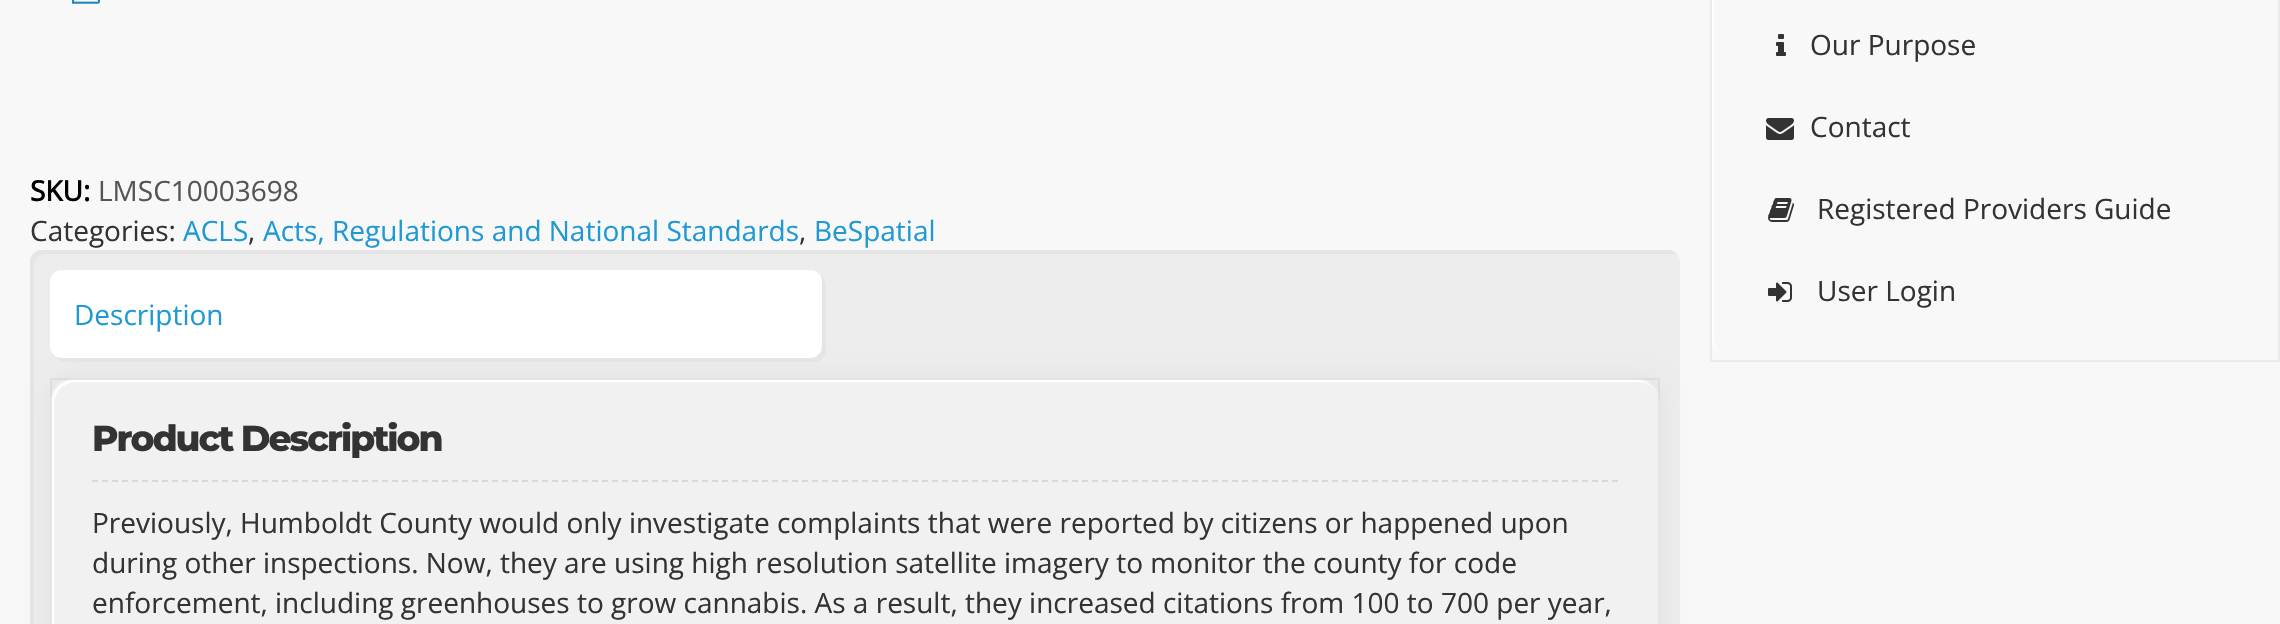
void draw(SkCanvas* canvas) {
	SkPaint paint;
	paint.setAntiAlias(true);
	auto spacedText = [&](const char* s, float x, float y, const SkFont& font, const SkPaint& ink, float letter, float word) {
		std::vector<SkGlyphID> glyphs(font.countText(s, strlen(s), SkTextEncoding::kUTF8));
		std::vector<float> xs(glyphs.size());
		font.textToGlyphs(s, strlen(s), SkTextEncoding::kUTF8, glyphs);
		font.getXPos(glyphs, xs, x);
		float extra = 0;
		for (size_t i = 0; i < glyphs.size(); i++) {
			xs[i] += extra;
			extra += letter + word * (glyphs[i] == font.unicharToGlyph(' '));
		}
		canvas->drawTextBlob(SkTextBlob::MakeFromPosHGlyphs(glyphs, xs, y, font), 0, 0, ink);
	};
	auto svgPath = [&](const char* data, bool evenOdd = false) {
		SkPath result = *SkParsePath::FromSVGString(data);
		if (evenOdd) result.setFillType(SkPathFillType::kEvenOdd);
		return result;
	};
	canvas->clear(0xfff8f8f8);
	canvas->drawImageRect(SkImages::DeferredFromEncodedData(SkData::MakeFromFileName("img1.png")), SkRect::MakeXYWH(72, 0, 28, 4), SkSamplingOptions());
	SkFont f1(fontMgr->matchFamilyStyle("Open Sans", SkFontStyle::Bold()), 28);
	f1.setSubpixel(true);
	paint.setColor(0xff000000);
	canvas->drawString("SKU:", 30, 201, f1, paint);
	SkFont f2(fontMgr->matchFamilyStyle("Open Sans", SkFontStyle::Normal()), 28);
	f2.setSubpixel(true);
	paint.setColor(0xff555555);
	canvas->drawString("LMSC10003698", 98, 201, f2, paint);
	paint.setColor(0xff333333);
	canvas->drawString("Categories:", 30, 241, f2, paint);
	paint.setColor(0xff1f99d4);
	canvas->drawString("ACLS", 183, 241, f2, paint);
	paint.setColor(0xff333333);
	canvas->drawString(",", 248, 241, f2, paint);
	paint.setColor(0xff1f99d4);
	canvas->drawString("Acts, Regulations and National Standards", 263, 241, f2, paint);
	paint.setColor(0xff333333);
	canvas->drawString(",", 799, 241, f2, paint);
	paint.setColor(0xff1f99d4);
	canvas->drawString("BeSpatial", 814, 241, f2, paint);
	paint.setColor(0xffededed);
	canvas->drawRoundRect(SkRect::MakeXYWH(30, 250, 1650, 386), 12, 12, paint);
	paint.setColor(0x08000000);
	canvas->drawPath(svgPath("M46 254H1672C1674 254 1676 255 1678 255C1676 252 1672 250 1668 250H42C35 250 30 255 30 262V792C30 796 32 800 35 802C35 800 34 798 34 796V266C34 259 39 254 46 254Z"), paint);
	paint.setColor(0x0d000000);
	paint.setMaskFilter(SkMaskFilter::MakeBlur(kNormal_SkBlurStyle, 12));
	canvas->drawRoundRect(SkRect::MakeXYWH(50, 378, 1610, 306), 24, 24, paint);
	paint.setMaskFilter(nullptr);
	paint.setColor(0xffe5e5e5);
	canvas->drawPath(svgPath("M56 356C58 360 62 362 66 362H814C821 362 826 357 826 350V286C826 282 824 278 820 276C821 278 822 280 822 282V346C822 353 817 358 810 358H62C60 358 58 357 56 356Z"), paint);
	paint.setColor(0xffffffff);
	canvas->drawRoundRect(SkRect::MakeXYWH(50, 270, 772, 88), 12, 12, paint);
	paint.setColor(0xff1f99d4);
	canvas->drawString("Description", 74, 325, f2, paint);
	paint.setColor(0xfff1f1f1);
	canvas->drawRoundRect(SkRect::MakeXYWH(50, 378, 1610, 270), 24, 24, paint);
	paint.setColor(0xffffffff);
	canvas->drawPath(svgPath("M76 382H1638C1644 382 1649 384 1653 388C1649 383 1643 380 1636 380H74C62 380 52 390 52 402V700C52 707 55 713 60 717C56 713 54 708 54 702V404C54 392 64 382 76 382Z"), paint);
	paint.setStroke(true);
	paint.setStrokeWidth(2);
	paint.setColor(0x0d000000);
	canvas->drawRect(SkRect::MakeXYWH(51, 379, 1608, 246), paint);
	paint.setColor(0xffd9d9d9);
	paint.setPathEffect(SkDashPathEffect::Make({{6, 4}}, 0));
	canvas->drawPath(svgPath("M92 481H1618"), paint);
	paint.setPathEffect(nullptr);
	SkFont f3(fontMgr->matchFamilyStyle("Montserrat", SkFontStyle(800, SkFontStyle::kNormal_Width, SkFontStyle::kUpright_Slant)), 36);
	f3.setSubpixel(true);
	paint.setStroke(false);
	paint.setColor(0xff333333);
	spacedText("Product Description", 92, 451, f3, paint, -2, 0);
	canvas->drawString("Previously, Humboldt County would only investigate complaints that were reported by citizens or happened upon", 92, 533, f2, paint);
	canvas->drawString("during other inspections. Now, they are using high resolution satellite imagery to monitor the county for code", 92, 573, f2, paint);
	canvas->drawString("enforcement, including greenhouses to grow cannabis. As a result, they increased citations from 100 to 700 per year,", 92, 613, f2, paint);
	paint.setColor(0xffffffff);
	canvas->drawPath(svgPath("M1736-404H2258C2264-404 2269-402 2273-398C2269-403 2263-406 2256-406H1734C1722-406 1712-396 1712-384V338C1712 345 1715 351 1720 355C1716 351 1714 346 1714 340V-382C1714-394 1724-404 1736-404Z"), paint);
	paint.setStroke(true);
	paint.setColor(0x0d000000);
	canvas->drawRect(SkRect::MakeXYWH(1711, -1, 568, 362), paint);
	canvas->drawImageRect(SkImages::DeferredFromEncodedData(SkData::MakeFromFileName("img2.png")), SkRect::MakeXYWH(1776, 34, 10, 22), SkSamplingOptions());
	paint.setStroke(false);
	paint.setColor(0xff333333);
	canvas->drawString("Our Purpose", 1810, 55, f2, paint);
	canvas->drawImageRect(SkImages::DeferredFromEncodedData(SkData::MakeFromFileName("img3.png")), SkRect::MakeXYWH(1766, 118, 28, 22), SkSamplingOptions());
	canvas->drawString("Contact", 1810, 137, f2, paint);
	canvas->drawImageRect(SkImages::DeferredFromEncodedData(SkData::MakeFromFileName("img4.png")), SkRect::MakeXYWH(1768, 198, 26, 24), SkSamplingOptions());
	canvas->drawString("Registered Providers Guide", 1817, 219, f2, paint);
	canvas->drawImageRect(SkImages::DeferredFromEncodedData(SkData::MakeFromFileName("img5.png")), SkRect::MakeXYWH(1768, 282, 24, 20), SkSamplingOptions());
	canvas->drawString("User Login", 1817, 301, f2, paint);
}
